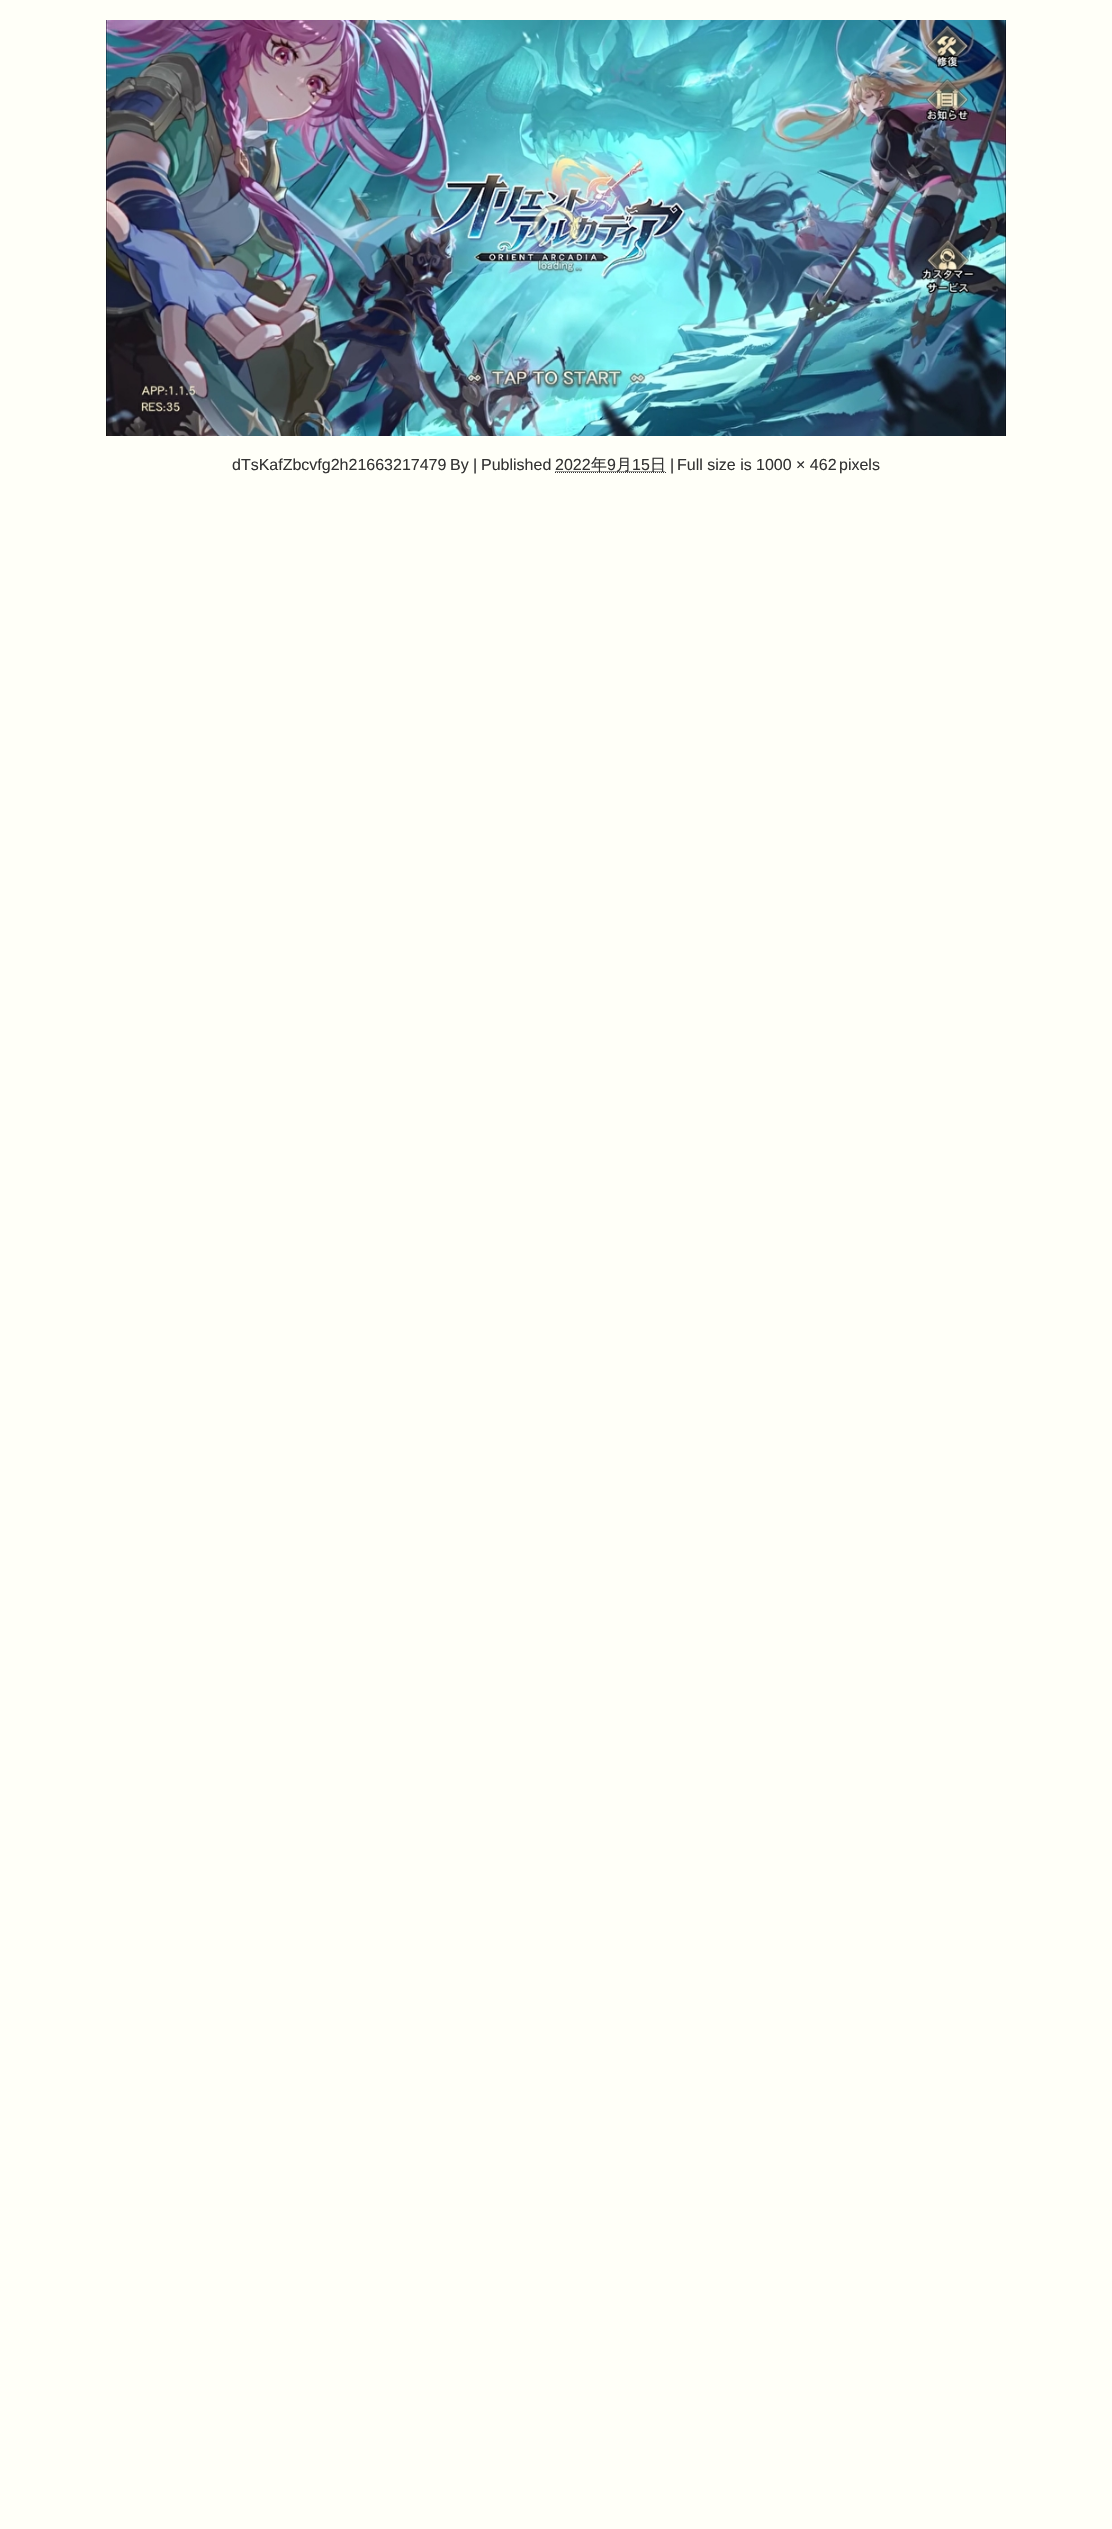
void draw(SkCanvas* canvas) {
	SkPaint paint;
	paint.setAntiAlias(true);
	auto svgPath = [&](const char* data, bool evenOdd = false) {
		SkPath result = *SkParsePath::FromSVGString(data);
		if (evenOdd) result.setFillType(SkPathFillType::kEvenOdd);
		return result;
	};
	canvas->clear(0xfffffff8);
	canvas->drawImageRect(SkImages::DeferredFromEncodedData(SkData::MakeFromFileName("img1.png")), SkRect::MakeXYWH(106, 20, 900, 416), SkSamplingOptions());
	SkFont f1(fontMgr->matchFamilyStyle("Liberation Sans", SkFontStyle::Normal()), 16);
	f1.setSubpixel(true);
	paint.setColor(0xff333333);
	canvas->drawString("dTsKafZbcvfg2h21663217479", 232, 470, f1, paint);
	canvas->drawString("By", 450, 470, f1, paint);
	canvas->drawString("|", 473, 470, f1, paint);
	canvas->drawString("Published", 481, 470, f1, paint);
	canvas->drawString("2022", 555, 470, f1, paint);
	paint.setStroke(true);
	paint.setStrokeWidth(1);
	paint.setPathEffect(SkDashPathEffect::Make({{1, 1}}, 0));
	canvas->drawPath(svgPath("M555.5 471.5H665.5"), paint);
	paint.setPathEffect(nullptr);
	SkFont f2(fontMgr->matchFamilyStyle("WenQuanYi Zen Hei", SkFontStyle(500, SkFontStyle::kNormal_Width, SkFontStyle::kUpright_Slant)), 16);
	f2.setSubpixel(true);
	paint.setStroke(false);
	canvas->drawString("年", 591, 470, f2, paint);
	canvas->drawString("9", 607, 470, f1, paint);
	paint.setStroke(true);
	paint.setPathEffect(SkDashPathEffect::Make({{1, 1}}, 0));
	canvas->drawPath(svgPath("M555 472.5H666"), paint);
	paint.setPathEffect(nullptr);
	paint.setStroke(false);
	canvas->drawString("月", 616, 470, f2, paint);
	canvas->drawString("15", 632, 470, f1, paint);
	canvas->drawString("日", 650, 470, f2, paint);
	canvas->drawString("|", 670, 470, f1, paint);
	canvas->drawString("Full size is", 677, 470, f1, paint);
	canvas->drawString("1000 × 462", 756, 470, f1, paint);
	canvas->drawString("pixels", 839, 470, f1, paint);
}
